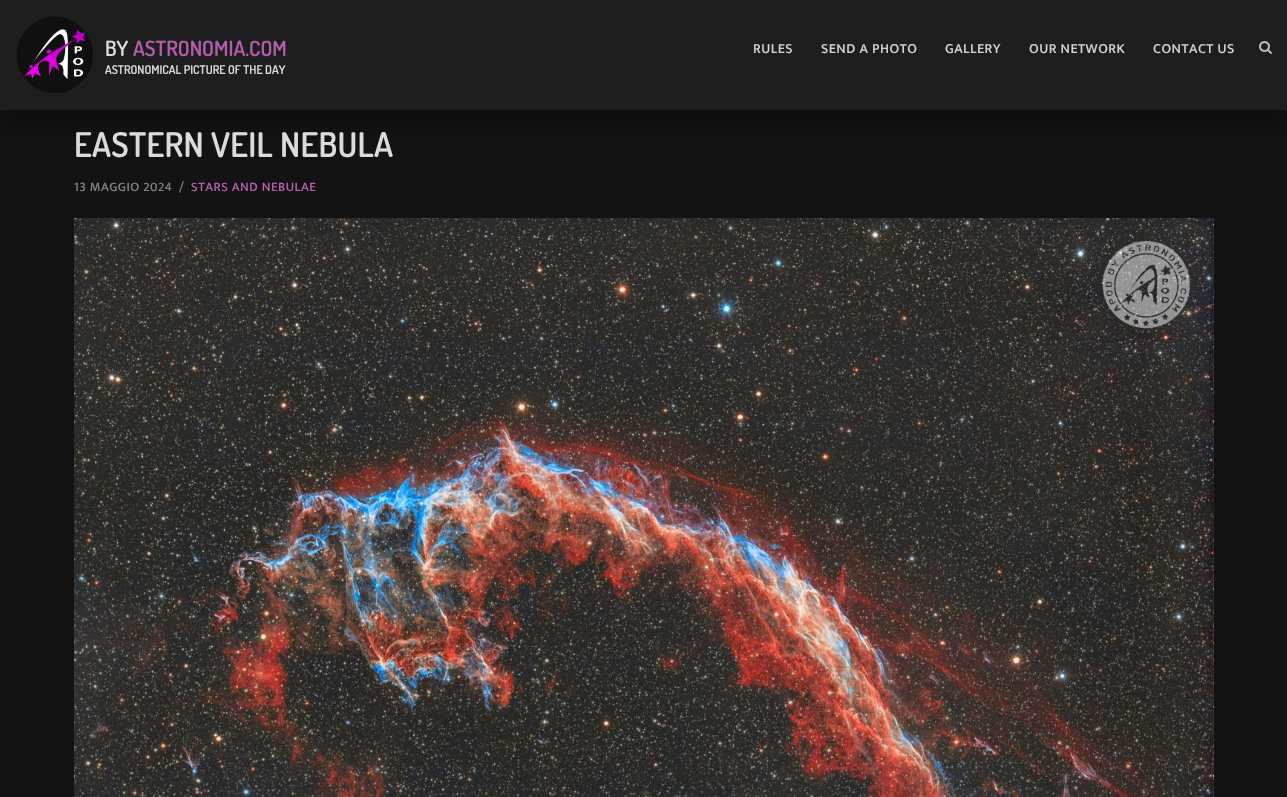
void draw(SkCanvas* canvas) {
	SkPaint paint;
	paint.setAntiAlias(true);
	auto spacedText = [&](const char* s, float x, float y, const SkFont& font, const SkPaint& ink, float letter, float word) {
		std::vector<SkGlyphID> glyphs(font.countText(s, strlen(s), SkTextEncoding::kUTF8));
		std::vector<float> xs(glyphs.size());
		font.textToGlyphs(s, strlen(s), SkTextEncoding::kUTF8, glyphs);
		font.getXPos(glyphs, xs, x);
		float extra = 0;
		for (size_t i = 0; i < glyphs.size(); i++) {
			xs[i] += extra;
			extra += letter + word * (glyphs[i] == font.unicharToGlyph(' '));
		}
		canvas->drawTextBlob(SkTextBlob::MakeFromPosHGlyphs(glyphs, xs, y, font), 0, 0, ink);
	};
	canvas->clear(0xff131313);
	paint.setColor(0x4a000000);
	paint.setMaskFilter(SkMaskFilter::MakeBlur(kNormal_SkBlurStyle, 9));
	canvas->drawRect(SkRect::MakeXYWH(0, 15, 1287, 110), paint);
	paint.setMaskFilter(nullptr);
	paint.setColor(0xff1e1e1e);
	canvas->drawRect(SkRect::MakeXYWH(0, 0, 1287, 110), paint);
	canvas->drawImageRect(SkImages::DeferredFromEncodedData(SkData::MakeFromFileName("img1.png")), SkRect::MakeXYWH(16, 16, 77, 77), SkSamplingOptions());
	SkFont f1(fontMgr->matchFamilyStyle("Dosis", SkFontStyle(600, SkFontStyle::kNormal_Width, SkFontStyle::kUpright_Slant)), 21);
	f1.setSubpixel(true);
	paint.setColor(0xffdbdbdb);
	canvas->drawString("BY", 105, 56, f1, paint);
	paint.setColor(0xffb35dac);
	canvas->drawString("ASTRONOMIA.COM", 133, 56, f1, paint);
	SkFont f2(fontMgr->matchFamilyStyle("Dosis", SkFontStyle(600, SkFontStyle::kNormal_Width, SkFontStyle::kUpright_Slant)), 12);
	f2.setSubpixel(true);
	paint.setColor(0xffdbdbdb);
	canvas->drawString("ASTRONOMICAL PICTURE OF THE DAY", 105, 74, f2, paint);
	SkFont f3(fontMgr->matchFamilyStyle("Mukta", SkFontStyle(500, SkFontStyle::kNormal_Width, SkFontStyle::kUpright_Slant)), 14);
	f3.setSubpixel(true);
	paint.setColor(0xffd2d2d2);
	spacedText("RULES", 753, 53, f3, paint, 0.5, 0);
	spacedText("SEND A PHOTO", 821, 53, f3, paint, 0.5, 0);
	spacedText("GALLERY", 945, 53, f3, paint, 0.5, 0);
	spacedText("OUR NETWORK", 1029, 53, f3, paint, 0.5, 0);
	spacedText("CONTACT US", 1153, 53, f3, paint, 0.5, 0);
	canvas->drawImageRect(SkImages::DeferredFromEncodedData(SkData::MakeFromFileName("img2.png")), SkRect::MakeXYWH(1259, 41, 13, 13), SkSamplingOptions());
	SkFont f4(fontMgr->matchFamilyStyle("Dosis", SkFontStyle(600, SkFontStyle::kNormal_Width, SkFontStyle::kUpright_Slant)), 34);
	f4.setSubpixel(true);
	paint.setColor(0xffdbdbdb);
	spacedText("EASTERN VEIL NEBULA", 74, 157, f4, paint, 0.25, 0);
	SkFont f5(fontMgr->matchFamilyStyle("Mukta", SkFontStyle(500, SkFontStyle::kNormal_Width, SkFontStyle::kUpright_Slant)), 13);
	f5.setSubpixel(true);
	paint.setColor(0xff808080);
	spacedText("13 MAGGIO 2024", 74, 191, f5, paint, 0.5, 0);
	spacedText("/", 179, 191, f5, paint, 0.5, 0);
	paint.setColor(0xffb35dac);
	spacedText("STARS AND NEBULAE", 191, 191, f5, paint, 0.5, 0);
	canvas->drawImageRect(SkImages::DeferredFromEncodedData(SkData::MakeFromFileName("img3.png")), SkRect::MakeXYWH(74, 218, 1140, 579), SkSamplingOptions());
}
